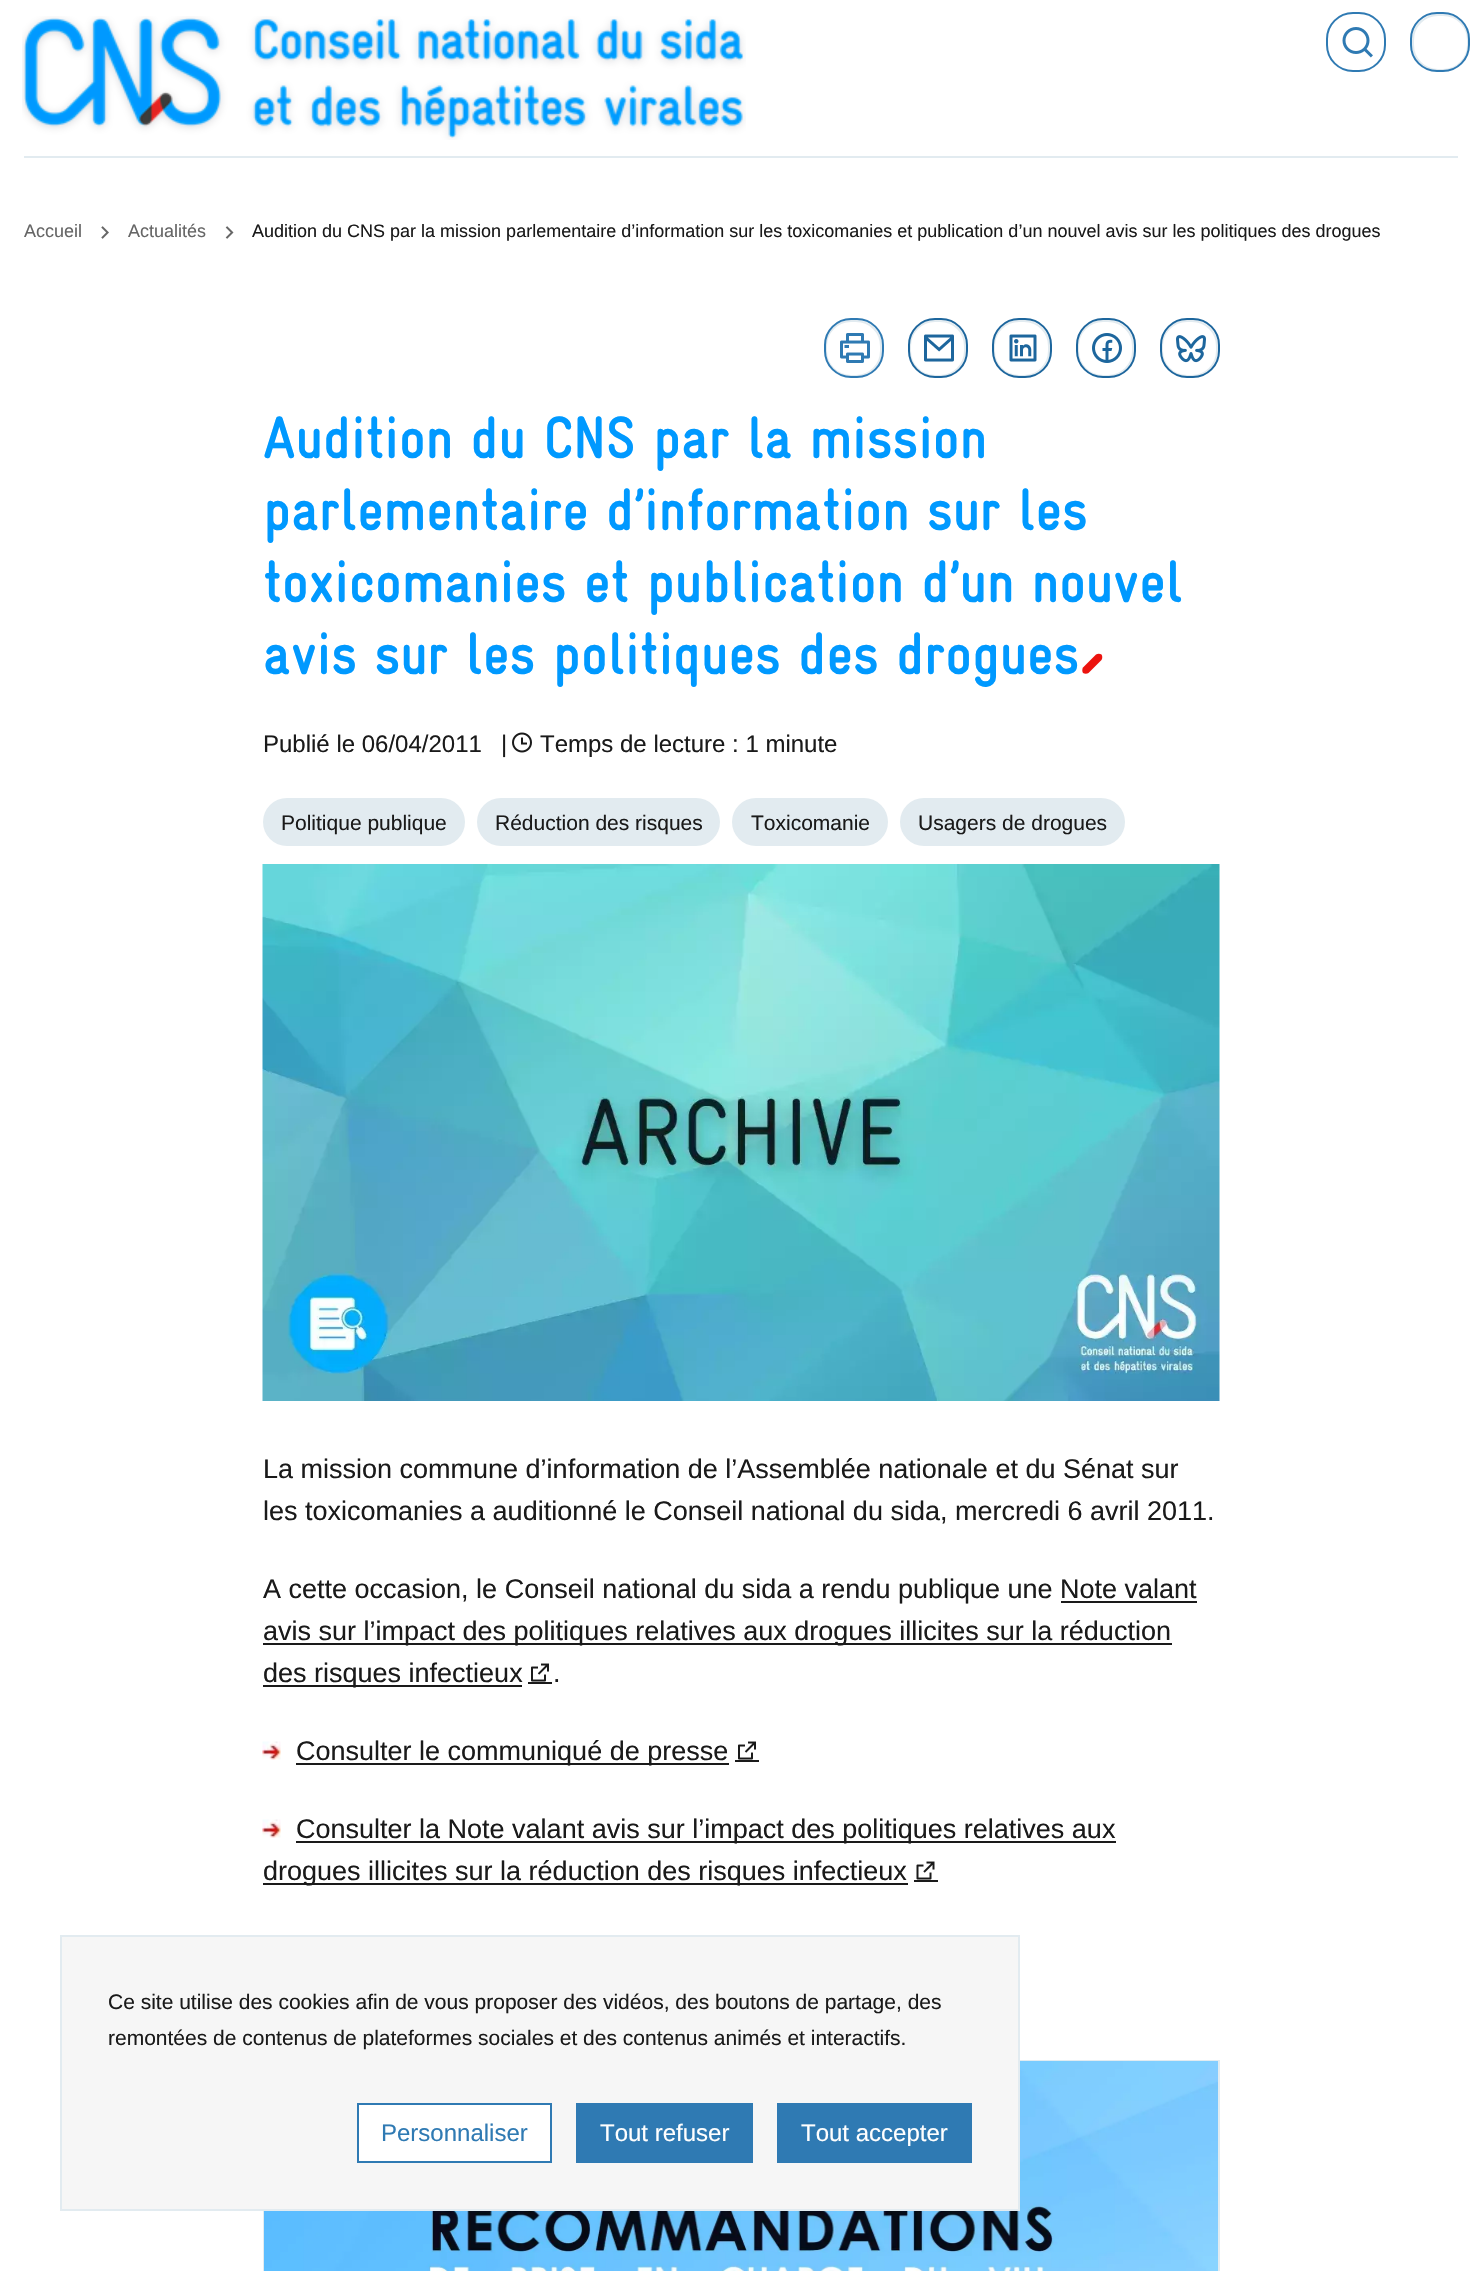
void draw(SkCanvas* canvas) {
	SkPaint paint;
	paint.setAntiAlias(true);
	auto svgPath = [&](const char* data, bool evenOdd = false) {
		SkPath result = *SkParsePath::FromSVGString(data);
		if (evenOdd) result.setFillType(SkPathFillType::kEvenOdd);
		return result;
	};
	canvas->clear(0xffffffff);
	canvas->drawImageRect(SkImages::DeferredFromEncodedData(SkData::MakeFromFileName("img1.png")), SkRect::MakeXYWH(22, 16, 724, 124), SkSamplingOptions());
	paint.setStroke(true);
	paint.setStrokeWidth(2);
	paint.setColor(0xff2f7ab3);
	canvas->drawRoundRect(SkRect::MakeXYWH(1327, 13, 58, 58), 26, 26, paint);
	canvas->drawImageRect(SkImages::DeferredFromEncodedData(SkData::MakeFromFileName("img2.png")), SkRect::MakeXYWH(1342, 27, 31, 31), SkSamplingOptions());
	paint.setColor(0xffe2ebf0);
	canvas->drawRoundRect(SkRect::MakeXYWH(1413, 15, 55, 55), 25, 25, paint);
	paint.setColor(0xff2f7ab3);
	canvas->drawRoundRect(SkRect::MakeXYWH(1411, 13, 58, 58), 26, 26, paint);
	paint.setStroke(false);
	paint.setColor(0xffe2ebf0);
	canvas->drawRect(SkRect::MakeXYWH(24, 156, 1434, 2), paint);
	SkFont f1(fontMgr->matchFamilyStyle("Liberation Sans", SkFontStyle::Normal()), 18);
	f1.setSubpixel(true);
	paint.setColor(0xff666666);
	canvas->drawString("Accueil", 24, 237, f1, paint);
	canvas->drawImageRect(SkImages::DeferredFromEncodedData(SkData::MakeFromFileName("img3.png")), SkRect::MakeXYWH(101, 226, 8, 13), SkSamplingOptions());
	canvas->drawString("Actualités", 128, 237, f1, paint);
	canvas->drawImageRect(SkImages::DeferredFromEncodedData(SkData::MakeFromFileName("img4.png")), SkRect::MakeXYWH(225, 226, 9, 13), SkSamplingOptions());
	paint.setColor(0xff1a1a1a);
	canvas->drawString("Audition du CNS par la mission parlementaire d’information sur les toxicomanies et publication d’un nouvel avis sur les politiques des drogues", 252, 237, f1, paint);
	paint.setStroke(true);
	paint.setColor(0xffe2ebf0);
	canvas->drawRoundRect(SkRect::MakeXYWH(826, 321, 55, 55), 25, 25, paint);
	paint.setColor(0xff2f7ab3);
	canvas->drawRoundRect(SkRect::MakeXYWH(825, 319, 58, 58), 26, 26, paint);
	canvas->drawImageRect(SkImages::DeferredFromEncodedData(SkData::MakeFromFileName("img5.png")), SkRect::MakeXYWH(840, 333, 30, 30), SkSamplingOptions());
	paint.setColor(0xffe2ebf0);
	canvas->drawRoundRect(SkRect::MakeXYWH(910, 321, 55, 55), 25, 25, paint);
	paint.setColor(0xff1d669d);
	canvas->drawRoundRect(SkRect::MakeXYWH(909, 319, 58, 58), 26, 26, paint);
	canvas->drawImageRect(SkImages::DeferredFromEncodedData(SkData::MakeFromFileName("img6.png")), SkRect::MakeXYWH(924, 334, 30, 28), SkSamplingOptions());
	paint.setColor(0xffe2ebf0);
	canvas->drawRoundRect(SkRect::MakeXYWH(994, 321, 55, 55), 25, 25, paint);
	paint.setColor(0xff1d669d);
	canvas->drawRoundRect(SkRect::MakeXYWH(993, 319, 58, 58), 26, 26, paint);
	canvas->drawImageRect(SkImages::DeferredFromEncodedData(SkData::MakeFromFileName("img7.png")), SkRect::MakeXYWH(1009, 334, 28, 28), SkSamplingOptions());
	paint.setColor(0xffe2ebf0);
	canvas->drawRoundRect(SkRect::MakeXYWH(1078, 321, 55, 55), 25, 25, paint);
	paint.setColor(0xff1d669d);
	canvas->drawRoundRect(SkRect::MakeXYWH(1077, 319, 58, 58), 26, 26, paint);
	canvas->drawImageRect(SkImages::DeferredFromEncodedData(SkData::MakeFromFileName("img8.png")), SkRect::MakeXYWH(1092, 333, 30, 30), SkSamplingOptions());
	paint.setColor(0xffe2ebf0);
	canvas->drawRoundRect(SkRect::MakeXYWH(1162, 321, 55, 55), 25, 25, paint);
	paint.setColor(0xff1d669d);
	canvas->drawRoundRect(SkRect::MakeXYWH(1161, 319, 58, 58), 26, 26, paint);
	canvas->drawImageRect(SkImages::DeferredFromEncodedData(SkData::MakeFromFileName("img9.png")), SkRect::MakeXYWH(1176, 335, 30, 28), SkSamplingOptions());
	SkFont f2(fontMgr->matchFamilyStyle("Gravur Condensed", SkFontStyle::Bold()), 60);
	f2.setSubpixel(true);
	paint.setStroke(false);
	paint.setColor(0xff0099ff);
	canvas->drawString("Audition du CNS par la mission", 263, 458, f2, paint);
	canvas->drawString("parlementaire d’information sur les", 263, 530, f2, paint);
	canvas->drawString("toxicomanies et publication d’un nouvel", 263, 602, f2, paint);
	canvas->drawString("avis sur les politiques des drogues", 263, 674, f2, paint);
	paint.setColor(0xffec130e);
	canvas->drawPath(svgPath("M1083 667.5L1096 654.5C1097.5 653.5 1100 653.5 1101.5 654.5C1102.5 656 1102.5 658.5 1101.5 660L1088.5 673C1087 674 1084.5 674 1083 673C1082 671.5 1082 669 1083 667.5Z"), paint);
	SkFont f3(fontMgr->matchFamilyStyle("Liberation Sans", SkFontStyle::Normal()), 24);
	f3.setSubpixel(true);
	paint.setColor(0xff1a1a1a);
	canvas->drawString("Publié le 06/04/2011", 263, 752, f3, paint);
	canvas->drawString("|", 501, 752, f3, paint);
	canvas->drawImageRect(SkImages::DeferredFromEncodedData(SkData::MakeFromFileName("img10.png")), SkRect::MakeXYWH(512, 732, 20, 21), SkSamplingOptions());
	canvas->drawString("Temps de lecture : 1 minute", 540, 752, f3, paint);
	paint.setColor(0xffe2ebf0);
	canvas->drawRoundRect(SkRect::MakeXYWH(263, 798, 202, 48), 24, 24, paint);
	SkFont f4(fontMgr->matchFamilyStyle("Liberation Sans", SkFontStyle::Normal()), 21);
	f4.setSubpixel(true);
	paint.setColor(0xff1a1a1a);
	canvas->drawString("Politique publique", 281, 830, f4, paint);
	paint.setColor(0xffe2ebf0);
	canvas->drawRoundRect(SkRect::MakeXYWH(477, 798, 243, 48), 24, 24, paint);
	paint.setColor(0xff1a1a1a);
	canvas->drawString("Réduction des risques", 495, 830, f4, paint);
	paint.setColor(0xffe2ebf0);
	canvas->drawRoundRect(SkRect::MakeXYWH(732, 798, 156, 48), 24, 24, paint);
	paint.setColor(0xff1a1a1a);
	canvas->drawString("Toxicomanie", 751, 830, f4, paint);
	paint.setColor(0xffe2ebf0);
	canvas->drawRoundRect(SkRect::MakeXYWH(900, 798, 225, 48), 24, 24, paint);
	paint.setColor(0xff1a1a1a);
	canvas->drawString("Usagers de drogues", 918, 830, f4, paint);
	canvas->drawImageRect(SkImages::DeferredFromEncodedData(SkData::MakeFromFileName("img11.png")), SkRect::MakeXYWH(262, 864, 958, 537), SkSamplingOptions());
	SkFont f5(fontMgr->matchFamilyStyle("Liberation Sans", SkFontStyle::Normal()), 27);
	f5.setSubpixel(true);
	canvas->drawString("La mission commune d’information de l’Assemblée nationale et du Sénat sur", 263, 1478, f5, paint);
	canvas->drawString("les toxicomanies a auditionné le Conseil national du sida, mercredi 6 avril 2011.", 263, 1520, f5, paint);
	canvas->drawString("A cette occasion, le Conseil national du sida a rendu publique une Note valant", 263, 1598, f5, paint);
	canvas->drawRect(SkRect::MakeXYWH(1061, 1601, 136, 2), paint);
	canvas->drawRect(SkRect::MakeXYWH(263, 1643, 909, 2), paint);
	canvas->drawRect(SkRect::MakeXYWH(263, 1685, 259, 2), paint);
	canvas->drawRect(SkRect::MakeXYWH(528, 1682, 24, 2), paint);
	canvas->drawString("avis sur l’impact des politiques relatives aux drogues illicites sur la réduction", 263, 1640, f5, paint);
	canvas->drawString("des risques infectieux", 263, 1682, f5, paint);
	canvas->drawImageRect(SkImages::DeferredFromEncodedData(SkData::MakeFromFileName("img12.png")), SkRect::MakeXYWH(531, 1663, 18, 19), SkSamplingOptions());
	canvas->drawString(".", 553, 1682, f5, paint);
	canvas->drawImageRect(SkImages::DeferredFromEncodedData(SkData::MakeFromFileName("img13.png")), SkRect::MakeXYWH(262, 1741, 19, 19), SkSamplingOptions());
	canvas->drawRect(SkRect::MakeXYWH(296, 1763, 433, 2), paint);
	canvas->drawRect(SkRect::MakeXYWH(735, 1760, 24, 2), paint);
	canvas->drawString("Consulter le communiqué de presse", 296, 1760, f5, paint);
	canvas->drawImageRect(SkImages::DeferredFromEncodedData(SkData::MakeFromFileName("img12.png")), SkRect::MakeXYWH(738, 1741, 18, 19), SkSamplingOptions());
	canvas->drawRect(SkRect::MakeXYWH(296, 1841, 820, 2), paint);
	canvas->drawRect(SkRect::MakeXYWH(263, 1883, 645, 2), paint);
	canvas->drawRect(SkRect::MakeXYWH(914, 1880, 24, 2), paint);
	canvas->drawString("Consulter la Note valant avis sur l’impact des politiques relatives aux", 296, 1838, f5, paint);
	canvas->drawString("drogues illicites sur la réduction des risques infectieux", 263, 1880, f5, paint);
	canvas->drawImageRect(SkImages::DeferredFromEncodedData(SkData::MakeFromFileName("img14.png")), SkRect::MakeXYWH(916, 1861, 19, 19), SkSamplingOptions());
	canvas->drawImageRect(SkImages::DeferredFromEncodedData(SkData::MakeFromFileName("img13.png")), SkRect::MakeXYWH(262, 1819, 19, 19), SkSamplingOptions());
	paint.setStroke(true);
	paint.setColor(0xffe2ebf0);
	canvas->drawRect(SkRect::MakeXYWH(264, 2061, 955, 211), paint);
	canvas->drawImageRect(SkImages::DeferredFromEncodedData(SkData::MakeFromFileName("img15.png")), SkRect::MakeXYWH(264, 2061, 954, 210), SkSamplingOptions());
	paint.setStroke(false);
	paint.setColor(0xfff6f6f6);
	canvas->drawRect(SkRect::MakeXYWH(61, 1936, 958, 274), paint);
	paint.setStroke(true);
	paint.setColor(0xffe2ebf0);
	canvas->drawRect(SkRect::MakeXYWH(61, 1936, 958, 274), paint);
	paint.setStroke(false);
	paint.setColor(0xff1a1a1a);
	canvas->drawString("Ce site utilise des cookies afin de vous proposer des vidéos, des boutons de partage, des", 108, 2009, f4, paint);
	canvas->drawString("remontées de contenus de plateformes sociales et des contenus animés et interactifs.", 108, 2045, f4, paint);
	paint.setColor(0xffffffff);
	canvas->drawRect(SkRect::MakeXYWH(358, 2104, 193, 58), paint);
	paint.setStroke(true);
	paint.setColor(0xff2f7ab3);
	canvas->drawRect(SkRect::MakeXYWH(358, 2104, 193, 58), paint);
	paint.setStroke(false);
	canvas->drawString("Personnaliser", 381, 2141, f3, paint);
	canvas->drawRect(SkRect::MakeXYWH(576, 2103, 177, 60), paint);
	paint.setColor(0xffffffff);
	canvas->drawString("Tout refuser", 600, 2141, f3, paint);
	paint.setColor(0xff2f7ab3);
	canvas->drawRect(SkRect::MakeXYWH(777, 2103, 195, 60), paint);
	paint.setColor(0xffffffff);
	canvas->drawString("Tout accepter", 801, 2141, f3, paint);
}
